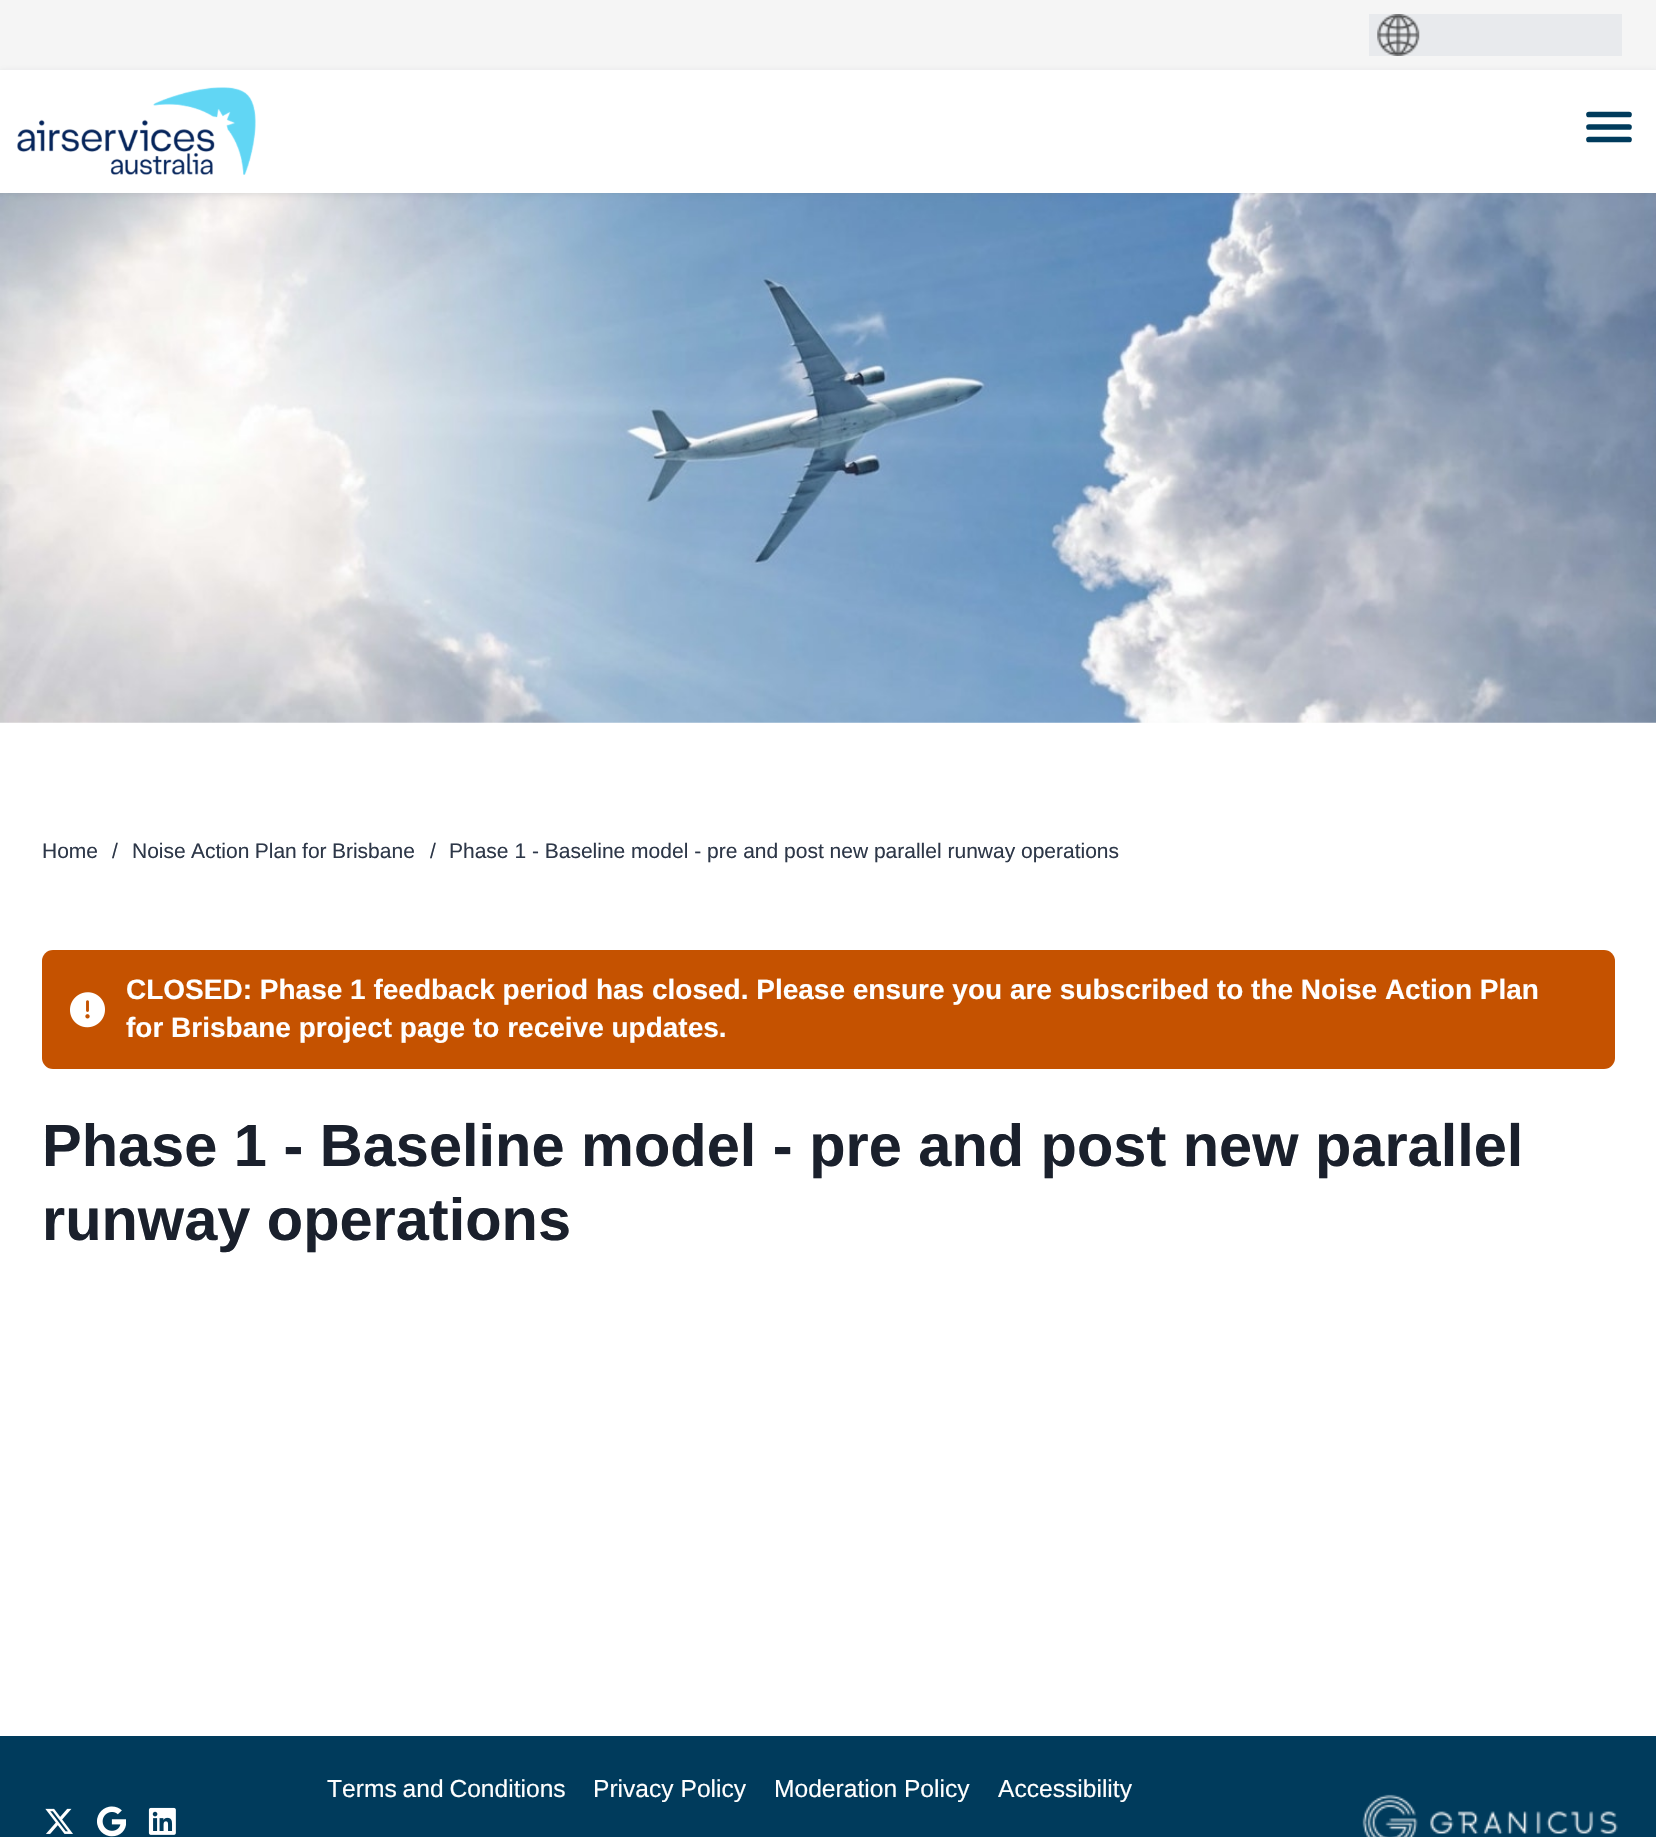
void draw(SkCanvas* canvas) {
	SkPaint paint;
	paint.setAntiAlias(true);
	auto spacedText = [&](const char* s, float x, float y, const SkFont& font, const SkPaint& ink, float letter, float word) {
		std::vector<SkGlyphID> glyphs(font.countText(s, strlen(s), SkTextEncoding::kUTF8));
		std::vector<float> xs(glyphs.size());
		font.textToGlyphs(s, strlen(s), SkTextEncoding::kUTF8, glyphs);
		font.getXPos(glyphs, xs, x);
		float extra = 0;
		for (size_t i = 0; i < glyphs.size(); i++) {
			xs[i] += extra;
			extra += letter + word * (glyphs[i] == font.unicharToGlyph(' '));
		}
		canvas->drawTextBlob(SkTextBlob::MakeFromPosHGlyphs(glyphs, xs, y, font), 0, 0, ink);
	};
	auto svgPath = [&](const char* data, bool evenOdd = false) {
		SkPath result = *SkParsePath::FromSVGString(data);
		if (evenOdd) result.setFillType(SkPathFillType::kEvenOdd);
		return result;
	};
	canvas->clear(0xffffffff);
	paint.setColor(0xfff5f5f5);
	canvas->drawRect(SkRect::MakeXYWH(0, 0, 1656, 70), paint);
	paint.setColor(0xffe8eaed);
	canvas->drawRect(SkRect::MakeXYWH(1369, 14, 253, 42), paint);
	canvas->drawImageRect(SkImages::DeferredFromEncodedData(SkData::MakeFromFileName("img1.png")), SkRect::MakeXYWH(1377, 14, 43, 42), SkSamplingOptions());
	canvas->drawImageRect(SkImages::DeferredFromEncodedData(SkData::MakeFromFileName("img3.png")), SkRect::MakeXYWH(0, 193, 1656, 530), SkSamplingOptions());
	paint.setColor(0x3368737d);
	paint.setMaskFilter(SkMaskFilter::MakeBlur(kNormal_SkBlurStyle, 3.5));
	canvas->drawRect(SkRect::MakeXYWH(0, 72, 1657, 122), paint);
	paint.setMaskFilter(nullptr);
	paint.setColor(0xffffffff);
	canvas->drawRect(SkRect::MakeXYWH(0, 70, 1656, 123), paint);
	canvas->drawImageRect(SkImages::DeferredFromEncodedData(SkData::MakeFromFileName("img2.png")), SkRect::MakeXYWH(17, 87, 239, 88), SkSamplingOptions());
	paint.setStroke(true);
	paint.setStrokeWidth(5.7);
	paint.setStrokeCap(SkPaint::kRound_Cap);
	paint.setColor(0xff003b5c);
	canvas->drawPath(svgPath("M1589 114.5H1629M1589 127H1629M1589 139.5H1629"), paint);
	SkFont f1(fontMgr->matchFamilyStyle("Liberation Sans", SkFontStyle::Normal()), 21);
	f1.setSubpixel(true);
	paint.setStroke(false);
	paint.setColor(0xff2d3748);
	canvas->drawString("Home", 42, 858, f1, paint);
	canvas->drawString("/", 112, 858, f1, paint);
	spacedText("Noise Action Plan for Brisbane", 132, 858, f1, paint, 0, -0.5);
	canvas->drawString("/", 430, 858, f1, paint);
	canvas->drawString("Phase 1 - Baseline model - pre and post new parallel runway operations", 449, 858, f1, paint);
	paint.setColor(0xffc55200);
	canvas->drawRoundRect(SkRect::MakeXYWH(42, 950, 1573, 119), 11, 11, paint);
	canvas->drawImageRect(SkImages::DeferredFromEncodedData(SkData::MakeFromFileName("img4.png")), SkRect::MakeXYWH(70, 992, 35, 36), SkSamplingOptions());
	SkFont f2(fontMgr->matchFamilyStyle("Liberation Sans", SkFontStyle::Bold()), 28);
	f2.setSubpixel(true);
	paint.setColor(0xffffffff);
	canvas->drawString("CLOSED: Phase 1 feedback period has closed. Please ensure you are subscribed to the Noise Action Plan", 126, 999, f2, paint);
	canvas->drawString("for Brisbane project page to receive updates.", 126, 1037, f2, paint);
	SkFont f3(fontMgr->matchFamilyStyle("Liberation Sans", SkFontStyle::Bold()), 59.5);
	f3.setSubpixel(true);
	paint.setColor(0xff1a202c);
	canvas->drawString("Phase 1 - Baseline model - pre and post new parallel", 42, 1166, f3, paint);
	canvas->drawString("runway operations", 42, 1240, f3, paint);
	paint.setColor(0xff003b5c);
	canvas->drawRect(SkRect::MakeXYWH(0, 1736, 1656, 101), paint);
	SkFont f4(fontMgr->matchFamilyStyle("Liberation Sans", SkFontStyle::Normal()), 24.6);
	f4.setSubpixel(true);
	paint.setColor(0xffffffff);
	spacedText("Terms and Conditions", 327, 1797, f4, paint, 0, -1);
	canvas->drawString("Privacy Policy", 593, 1797, f4, paint);
	canvas->drawString("Moderation Policy", 774, 1797, f4, paint);
	canvas->drawString("Accessibility", 998, 1797, f4, paint);
	canvas->drawImageRect(SkImages::DeferredFromEncodedData(SkData::MakeFromFileName("img5.png")), SkRect::MakeXYWH(45, 1808, 28, 26), SkSamplingOptions());
	canvas->drawImageRect(SkImages::DeferredFromEncodedData(SkData::MakeFromFileName("img6.png")), SkRect::MakeXYWH(97, 1806, 29, 31), SkSamplingOptions());
	canvas->drawImageRect(SkImages::DeferredFromEncodedData(SkData::MakeFromFileName("img7.png")), SkRect::MakeXYWH(148, 1807, 28, 28), SkSamplingOptions());
	canvas->drawImageRect(SkImages::DeferredFromEncodedData(SkData::MakeFromFileName("img8.png")), SkRect::MakeXYWH(1362, 1794, 256, 43), SkSamplingOptions());
}
